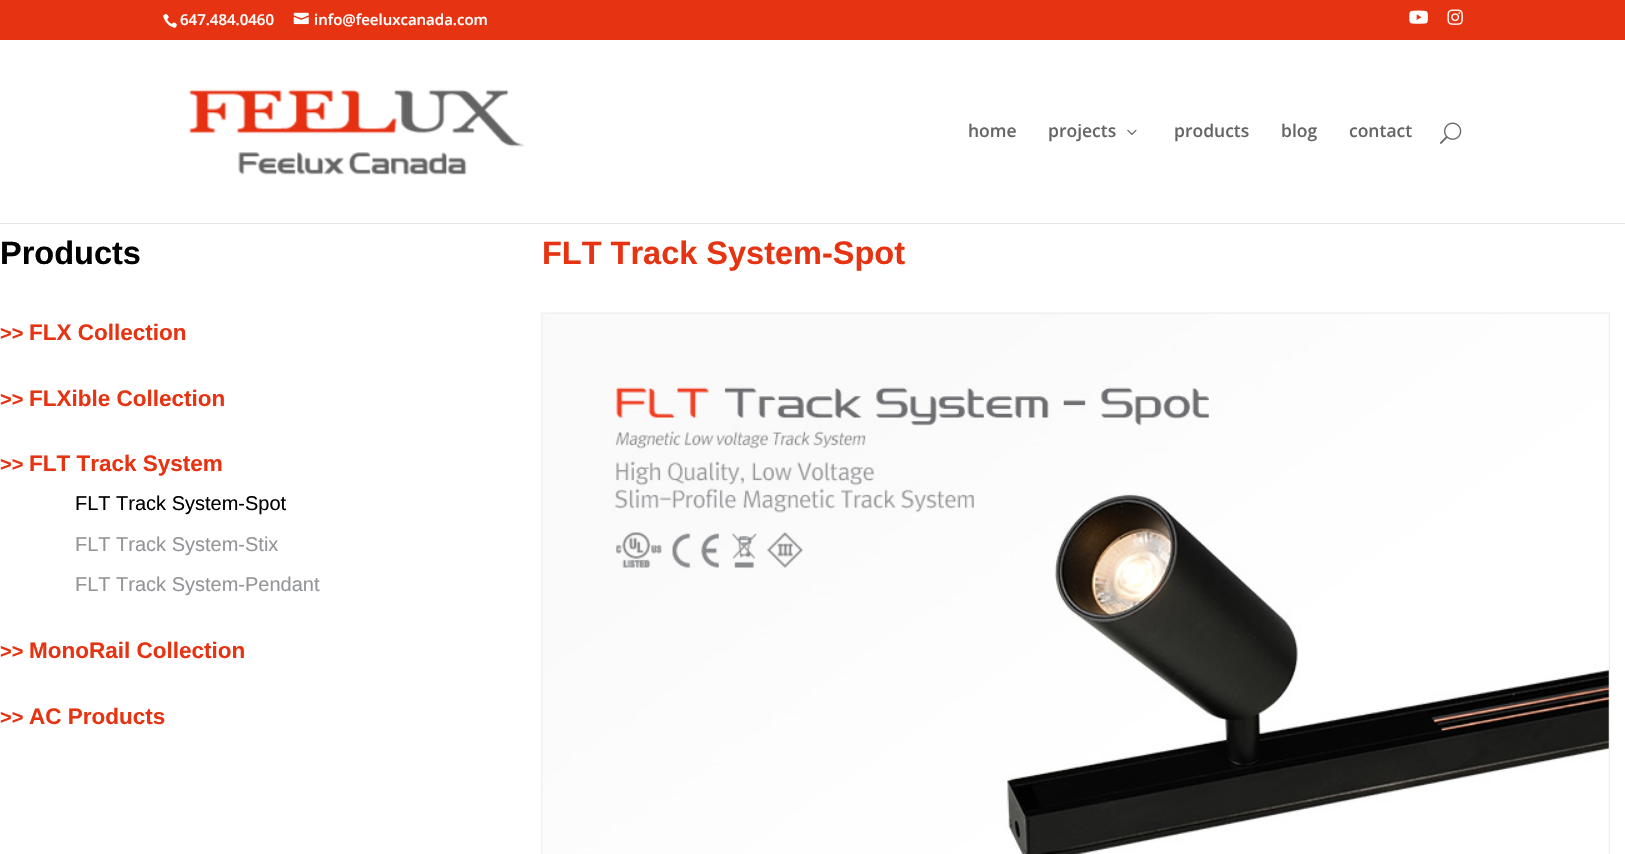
void draw(SkCanvas* canvas) {
	SkPaint paint;
	paint.setAntiAlias(true);
	canvas->clear(0xffffffff);
	paint.setColor(0xffe63312);
	canvas->drawRect(SkRect::MakeXYWH(0, 0, 1625, 40), paint);
	canvas->drawImageRect(SkImages::DeferredFromEncodedData(SkData::MakeFromFileName("img1.png")), SkRect::MakeXYWH(163, 14, 14, 14), SkSamplingOptions());
	SkFont f1(fontMgr->matchFamilyStyle("Open Sans", SkFontStyle(600, SkFontStyle::kNormal_Width, SkFontStyle::kUpright_Slant)), 15);
	f1.setSubpixel(true);
	paint.setColor(0xffffffff);
	canvas->drawString("647.484.0460", 180, 25, f1, paint);
	canvas->drawImageRect(SkImages::DeferredFromEncodedData(SkData::MakeFromFileName("img2.png")), SkRect::MakeXYWH(293, 12, 16, 13), SkSamplingOptions());
	canvas->drawString("info@feeluxcanada.com", 314, 25, f1, paint);
	canvas->drawImageRect(SkImages::DeferredFromEncodedData(SkData::MakeFromFileName("img3.png")), SkRect::MakeXYWH(1409, 10, 19, 14), SkSamplingOptions());
	canvas->drawImageRect(SkImages::DeferredFromEncodedData(SkData::MakeFromFileName("img4.png")), SkRect::MakeXYWH(1447, 9, 16, 16), SkSamplingOptions());
	paint.setColor(0xffe6e6e6);
	canvas->drawRect(SkRect::MakeXYWH(0, 223, 1625, 1), paint);
	canvas->drawImageRect(SkImages::DeferredFromEncodedData(SkData::MakeFromFileName("img5.png")), SkRect::MakeXYWH(189, 89, 336, 86), SkSamplingOptions());
	SkFont f2(fontMgr->matchFamilyStyle("Open Sans", SkFontStyle(600, SkFontStyle::kNormal_Width, SkFontStyle::kUpright_Slant)), 17.5);
	f2.setSubpixel(true);
	paint.setColor(0xff666666);
	canvas->drawString("home", 968, 137, f2, paint);
	canvas->drawString("projects", 1048, 137, f2, paint);
	canvas->drawImageRect(SkImages::DeferredFromEncodedData(SkData::MakeFromFileName("img6.png")), SkRect::MakeXYWH(1127, 129, 10, 6), SkSamplingOptions());
	canvas->drawString("products", 1174, 137, f2, paint);
	canvas->drawString("blog", 1281, 137, f2, paint);
	canvas->drawString("contact", 1349, 137, f2, paint);
	canvas->drawImageRect(SkImages::DeferredFromEncodedData(SkData::MakeFromFileName("img7.png")), SkRect::MakeXYWH(1440, 122, 22, 22), SkSamplingOptions());
	SkFont f3(fontMgr->matchFamilyStyle("Liberation Sans", SkFontStyle::Bold()), 32.5);
	f3.setSubpixel(true);
	paint.setColor(0xff000000);
	canvas->drawString("Products", 0, 264, f3, paint);
	SkFont f4(fontMgr->matchFamilyStyle("Liberation Sans", SkFontStyle::Bold()), 20);
	f4.setSubpixel(true);
	paint.setColor(0xffe63312);
	canvas->drawString(">>", 0, 340, f4, paint);
	SkFont f5(fontMgr->matchFamilyStyle("Liberation Sans", SkFontStyle::Bold()), 22.5);
	f5.setSubpixel(true);
	canvas->drawString("FLX Collection", 29, 340, f5, paint);
	canvas->drawString(">>", 0, 406, f4, paint);
	canvas->drawString("FLXible Collection", 29, 406, f5, paint);
	canvas->drawString(">>", 0, 471, f4, paint);
	canvas->drawString("FLT Track System", 29, 471, f5, paint);
	SkFont f6(fontMgr->matchFamilyStyle("Liberation Sans", SkFontStyle::Normal()), 20);
	f6.setSubpixel(true);
	paint.setColor(0xff000000);
	canvas->drawString("FLT Track System-Spot", 75, 510, f6, paint);
	paint.setColor(0xff939598);
	canvas->drawString("FLT Track System-Stix", 75, 551, f6, paint);
	canvas->drawString("FLT Track System-Pendant", 75, 591, f6, paint);
	paint.setColor(0xffe63312);
	canvas->drawString(">>", 0, 658, f4, paint);
	canvas->drawString("MonoRail Collection", 29, 658, f5, paint);
	canvas->drawString(">>", 0, 724, f4, paint);
	canvas->drawString("AC Products", 29, 724, f5, paint);
	canvas->drawString("FLT Track System-Spot", 542, 264, f3, paint);
	canvas->drawImageRect(SkImages::DeferredFromEncodedData(SkData::MakeFromFileName("img8.png")), SkRect::MakeXYWH(541, 312, 1069, 542), SkSamplingOptions());
}
